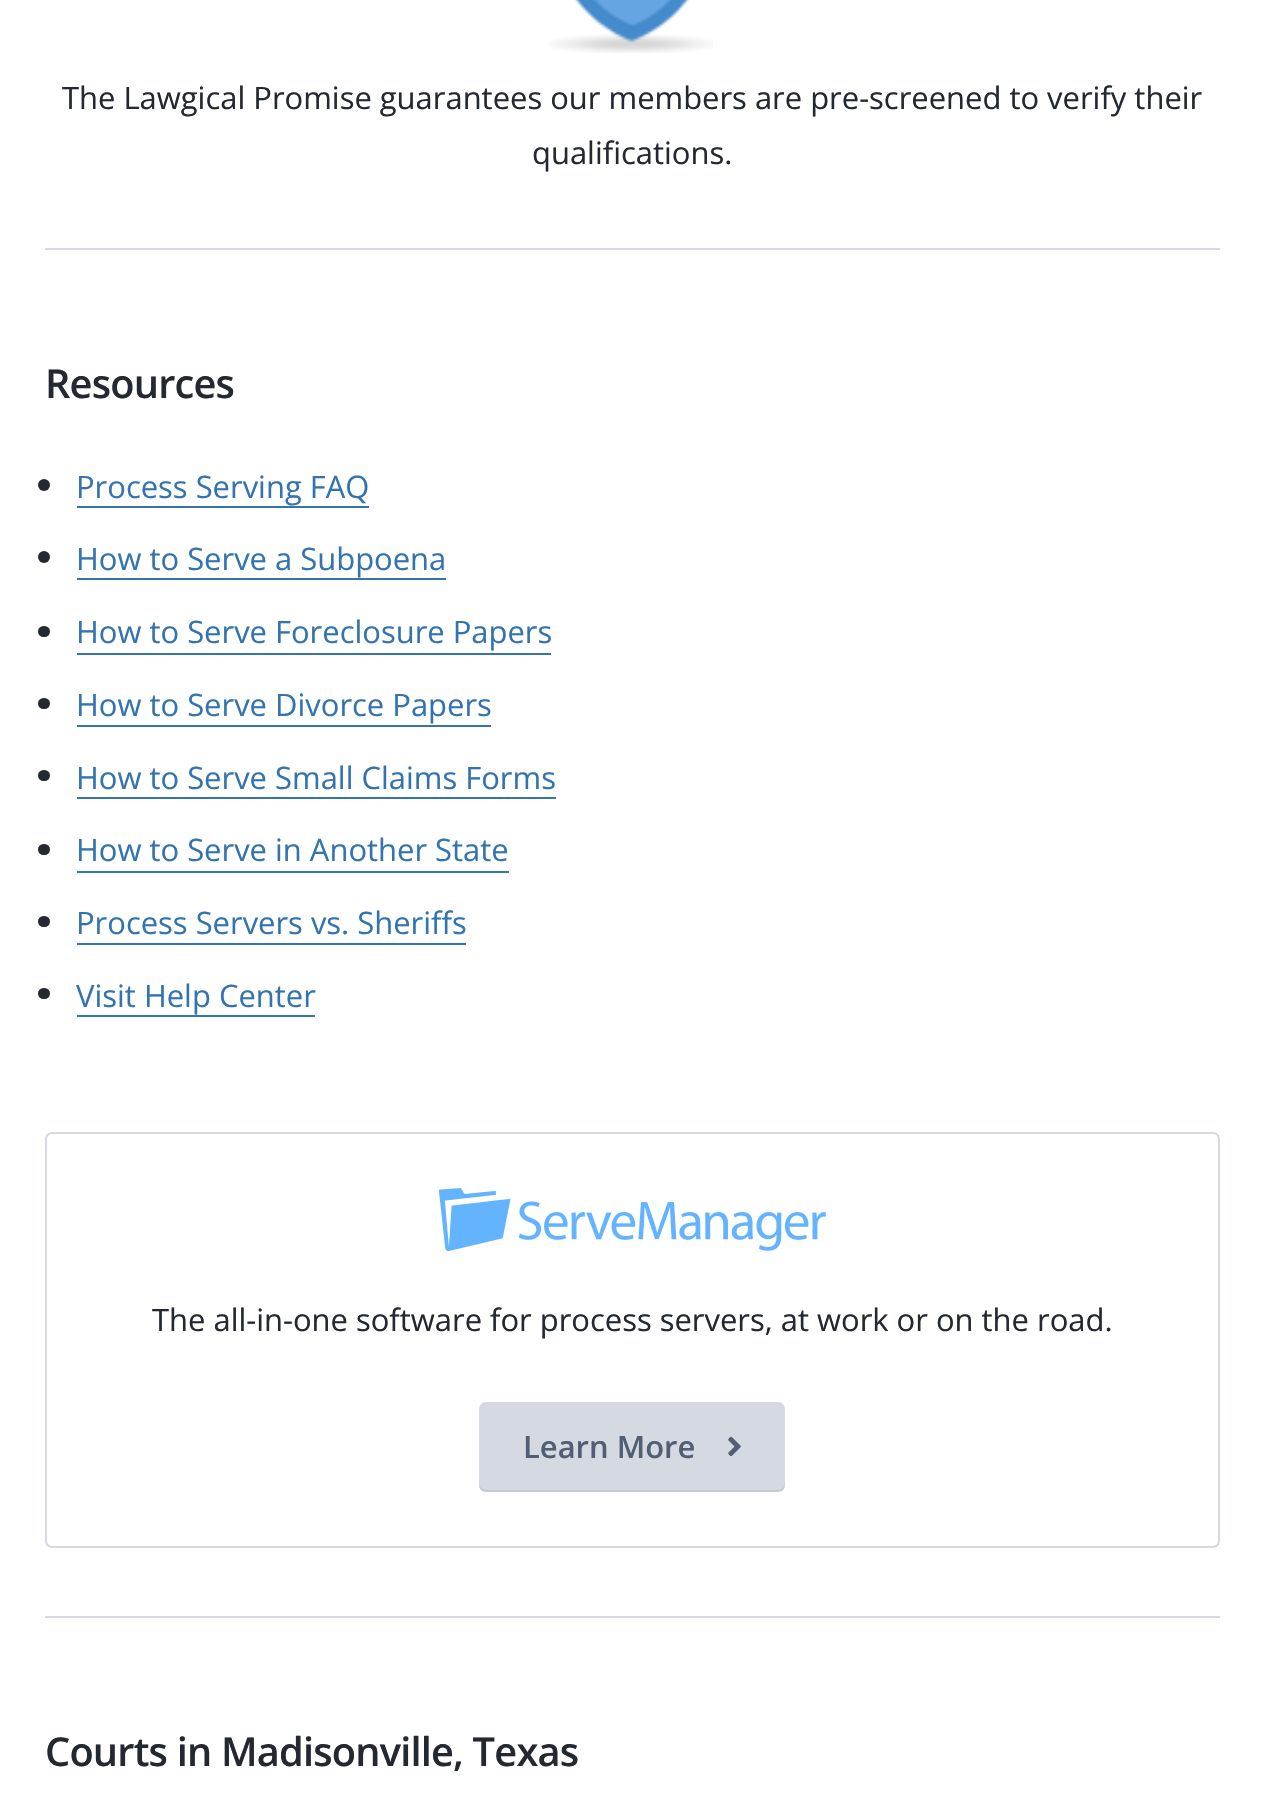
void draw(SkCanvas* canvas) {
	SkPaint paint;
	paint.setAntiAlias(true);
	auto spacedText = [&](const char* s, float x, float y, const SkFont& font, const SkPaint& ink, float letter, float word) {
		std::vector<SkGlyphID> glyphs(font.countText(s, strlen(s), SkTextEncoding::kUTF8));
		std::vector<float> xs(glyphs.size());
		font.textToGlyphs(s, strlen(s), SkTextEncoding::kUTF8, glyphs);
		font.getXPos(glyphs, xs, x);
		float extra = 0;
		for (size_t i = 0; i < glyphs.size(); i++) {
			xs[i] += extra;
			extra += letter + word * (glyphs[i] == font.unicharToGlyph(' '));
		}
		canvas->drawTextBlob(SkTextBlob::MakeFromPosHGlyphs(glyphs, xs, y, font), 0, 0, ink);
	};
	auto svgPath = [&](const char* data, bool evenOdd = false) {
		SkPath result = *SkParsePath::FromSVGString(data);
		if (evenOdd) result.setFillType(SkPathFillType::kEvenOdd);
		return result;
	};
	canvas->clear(0xffffffff);
	canvas->drawImageRect(SkImages::DeferredFromEncodedData(SkData::MakeFromFileName("img1.png")), SkRect::MakeXYWH(549, 0, 164, 53), SkSamplingOptions());
	SkFont f1(fontMgr->matchFamilyStyle("Open Sans", SkFontStyle::Normal()), 30.95);
	f1.setSubpixel(true);
	paint.setColor(0xff232831);
	canvas->drawString("The Lawgical Promise guarantees our members are pre-screened to verify their", 62, 109, f1, paint);
	canvas->drawString("qualifications.", 532, 164, f1, paint);
	paint.setColor(0xffd5d9e1);
	canvas->drawRect(SkRect::MakeXYWH(45, 248, 1175, 2), paint);
	SkFont f2(fontMgr->matchFamilyStyle("Open Sans", SkFontStyle(600, SkFontStyle::kNormal_Width, SkFontStyle::kUpright_Slant)), 39.75);
	f2.setSubpixel(true);
	paint.setColor(0xff232831);
	spacedText("Resources", 45, 398, f2, paint, -0.8, 0);
	canvas->drawCircle(44, 485, 6, paint);
	paint.setColor(0xff3373af);
	canvas->drawString("Process Serving FAQ", 76, 498, f1, paint);
	canvas->drawRect(SkRect::MakeXYWH(77, 506, 292, 2), paint);
	paint.setColor(0xff232831);
	canvas->drawCircle(44, 557, 6, paint);
	paint.setColor(0xff3373af);
	canvas->drawString("How to Serve a Subpoena", 76, 570, f1, paint);
	canvas->drawRect(SkRect::MakeXYWH(77, 578, 369, 2), paint);
	paint.setColor(0xff232831);
	canvas->drawRoundRect(SkRect::MakeXYWH(38, 626, 12, 11), 5.5, 5.5, paint);
	paint.setColor(0xff3373af);
	canvas->drawString("How to Serve Foreclosure Papers", 76, 643, f1, paint);
	canvas->drawRect(SkRect::MakeXYWH(77, 653, 474, 2), paint);
	paint.setColor(0xff232831);
	canvas->drawRoundRect(SkRect::MakeXYWH(38, 698, 12, 11), 5.5, 5.5, paint);
	paint.setColor(0xff3373af);
	canvas->drawString("How to Serve Divorce Papers", 76, 716, f1, paint);
	canvas->drawRect(SkRect::MakeXYWH(77, 725, 414, 2), paint);
	paint.setColor(0xff232831);
	canvas->drawRoundRect(SkRect::MakeXYWH(38, 770, 12, 11), 5.5, 5.5, paint);
	paint.setColor(0xff3373af);
	canvas->drawString("How to Serve Small Claims Forms", 76, 789, f1, paint);
	canvas->drawRect(SkRect::MakeXYWH(77, 797, 479, 2), paint);
	paint.setColor(0xff232831);
	canvas->drawRoundRect(SkRect::MakeXYWH(38, 844, 12, 11), 5.5, 5.5, paint);
	paint.setColor(0xff3373af);
	canvas->drawString("How to Serve in Another State", 76, 861, f1, paint);
	canvas->drawRect(SkRect::MakeXYWH(77, 871, 432, 2), paint);
	paint.setColor(0xff232831);
	canvas->drawRoundRect(SkRect::MakeXYWH(38, 916, 12, 11), 5.5, 5.5, paint);
	paint.setColor(0xff3373af);
	canvas->drawString("Process Servers vs. Sheriffs", 76, 934, f1, paint);
	canvas->drawRect(SkRect::MakeXYWH(77, 943, 389, 2), paint);
	paint.setColor(0xff232831);
	canvas->drawRoundRect(SkRect::MakeXYWH(38, 988, 12, 11), 5.5, 5.5, paint);
	paint.setColor(0xff3373af);
	canvas->drawString("Visit Help Center", 76, 1007, f1, paint);
	canvas->drawRect(SkRect::MakeXYWH(77, 1015, 238, 2), paint);
	paint.setStroke(true);
	paint.setStrokeWidth(2);
	paint.setColor(0xffd5d9e1);
	canvas->drawRoundRect(SkRect::MakeXYWH(46, 1133, 1173, 414), 6, 6, paint);
	canvas->drawImageRect(SkImages::DeferredFromEncodedData(SkData::MakeFromFileName("img2.png")), SkRect::MakeXYWH(439, 1188, 387, 63), SkSamplingOptions());
	paint.setStroke(false);
	paint.setColor(0xff232831);
	canvas->drawString("The all-in-one software for process servers, at work or on the road.", 152, 1331, f1, paint);
	paint.setColor(0xffd5d9e1);
	canvas->drawRoundRect(SkRect::MakeXYWH(479, 1402, 306, 90), 7, 7, paint);
	paint.setColor(0x14000000);
	canvas->drawPath(svgPath("M479 1483V1485C479 1489 482 1492 486 1492H778C782 1492 785 1489 785 1485V1483C785 1486 782 1490 778 1490H486C482 1490 479 1486 479 1483Z"), paint);
	SkFont f3(fontMgr->matchFamilyStyle("Open Sans", SkFontStyle(600, SkFontStyle::kNormal_Width, SkFontStyle::kUpright_Slant)), 30.95);
	f3.setSubpixel(true);
	paint.setColor(0xff525e73);
	canvas->drawString("Learn More", 523, 1458, f3, paint);
	canvas->drawImageRect(SkImages::DeferredFromEncodedData(SkData::MakeFromFileName("img3.png")), SkRect::MakeXYWH(728, 1436, 13, 21), SkSamplingOptions());
	paint.setColor(0xffd5d9e1);
	canvas->drawRect(SkRect::MakeXYWH(45, 1616, 1175, 2), paint);
	paint.setColor(0xff232831);
	spacedText("Courts in Madisonville, Texas", 45, 1766, f2, paint, -0.8, 0);
}
